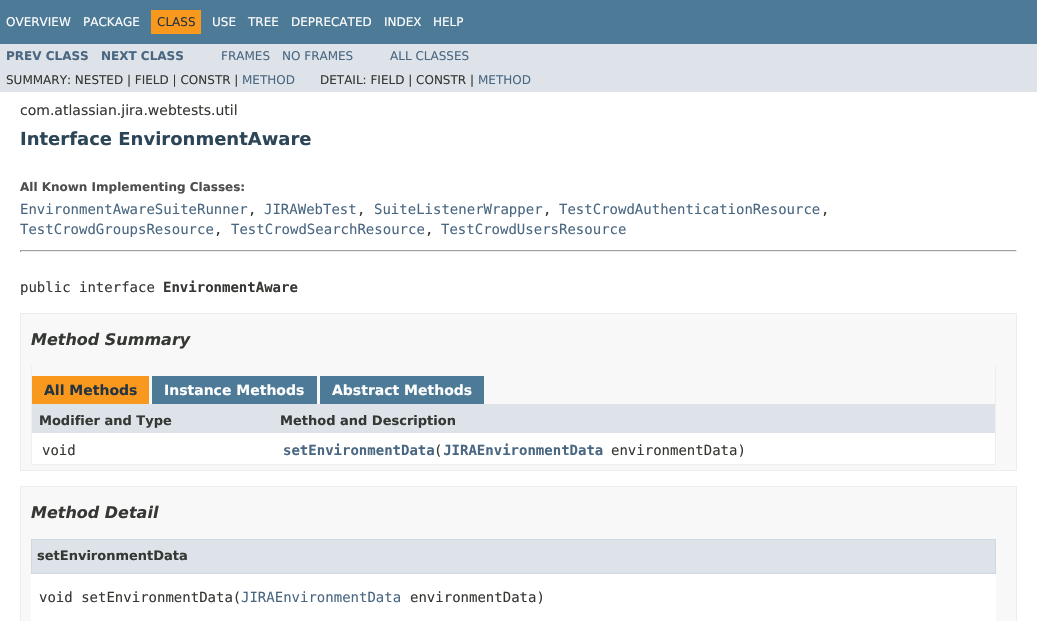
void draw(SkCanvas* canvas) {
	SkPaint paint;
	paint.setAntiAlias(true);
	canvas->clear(0xffffffff);
	paint.setColor(0xff4d7a97);
	canvas->drawRect(SkRect::MakeXYWH(0, 0, 1037, 44), paint);
	SkFont f1(fontMgr->matchFamilyStyle("DejaVu Sans", SkFontStyle::Normal()), 12);
	f1.setSubpixel(true);
	paint.setColor(0xffffffff);
	canvas->drawString("OVERVIEW", 6, 26, f1, paint);
	canvas->drawString("PACKAGE", 83, 26, f1, paint);
	paint.setColor(0xfff8981d);
	canvas->drawRect(SkRect::MakeXYWH(151, 10, 50, 24), paint);
	paint.setColor(0xff253441);
	canvas->drawString("CLASS", 157, 26, f1, paint);
	paint.setColor(0xffffffff);
	canvas->drawString("USE", 212, 26, f1, paint);
	canvas->drawString("TREE", 248, 26, f1, paint);
	canvas->drawString("DEPRECATED", 291, 26, f1, paint);
	canvas->drawString("INDEX", 384, 26, f1, paint);
	canvas->drawString("HELP", 433, 26, f1, paint);
	paint.setColor(0xffdee3e9);
	canvas->drawRect(SkRect::MakeXYWH(0, 44, 1037, 48), paint);
	SkFont f2(fontMgr->matchFamilyStyle("DejaVu Sans", SkFontStyle::Bold()), 12);
	f2.setSubpixel(true);
	paint.setColor(0xff4a6782);
	canvas->drawString("PREV CLASS", 6, 60, f2, paint);
	canvas->drawString("NEXT CLASS", 101, 60, f2, paint);
	canvas->drawString("FRAMES", 221, 60, f1, paint);
	canvas->drawString("NO FRAMES", 282, 60, f1, paint);
	canvas->drawString("ALL CLASSES", 390, 60, f1, paint);
	paint.setColor(0xff353833);
	canvas->drawString("SUMMARY: NESTED | FIELD | CONSTR |", 6, 84, f1, paint);
	paint.setColor(0xff4a6782);
	canvas->drawString("METHOD", 242, 84, f1, paint);
	paint.setColor(0xff353833);
	canvas->drawString("DETAIL: FIELD | CONSTR |", 320, 84, f1, paint);
	paint.setColor(0xff4a6782);
	canvas->drawString("METHOD", 478, 84, f1, paint);
	SkFont f3(fontMgr->matchFamilyStyle("DejaVu Sans", SkFontStyle::Normal()), 14);
	f3.setSubpixel(true);
	paint.setColor(0xff353833);
	canvas->drawString("com.atlassian.jira.webtests.util", 20, 115, f3, paint);
	SkFont f4(fontMgr->matchFamilyStyle("DejaVu Sans", SkFontStyle::Bold()), 18);
	f4.setSubpixel(true);
	paint.setColor(0xff2c4557);
	canvas->drawString("Interface EnvironmentAware", 20, 145, f4, paint);
	paint.setColor(0xff4e4e4e);
	canvas->drawString("All Known Implementing Classes:", 20, 191, f2, paint);
	SkFont f5(fontMgr->matchFamilyStyle("DejaVu Sans Mono", SkFontStyle::Normal()), 14);
	f5.setSubpixel(true);
	paint.setColor(0xff4a6782);
	canvas->drawString("EnvironmentAwareSuiteRunner", 20, 214, f5, paint);
	paint.setColor(0xff353833);
	canvas->drawString(",", 248, 214, f5, paint);
	paint.setColor(0xff4a6782);
	canvas->drawString("JIRAWebTest", 264, 214, f5, paint);
	paint.setColor(0xff353833);
	canvas->drawString(",", 357, 214, f5, paint);
	paint.setColor(0xff4a6782);
	canvas->drawString("SuiteListenerWrapper", 374, 214, f5, paint);
	paint.setColor(0xff353833);
	canvas->drawString(",", 543, 214, f5, paint);
	paint.setColor(0xff4a6782);
	canvas->drawString("TestCrowdAuthenticationResource", 559, 214, f5, paint);
	paint.setColor(0xff353833);
	canvas->drawString(",", 821, 214, f5, paint);
	paint.setColor(0xff4a6782);
	canvas->drawString("TestCrowdGroupsResource", 20, 234, f5, paint);
	paint.setColor(0xff353833);
	canvas->drawString(",", 214, 234, f5, paint);
	paint.setColor(0xff4a6782);
	canvas->drawString("TestCrowdSearchResource", 231, 234, f5, paint);
	paint.setColor(0xff353833);
	canvas->drawString(",", 425, 234, f5, paint);
	paint.setColor(0xff4a6782);
	canvas->drawString("TestCrowdUsersResource", 441, 234, f5, paint);
	paint.setColor(0xff9f9f9f);
	canvas->drawRect(SkRect::MakeXYWH(20, 250, 997, 1), paint);
	paint.setColor(0xffeeeeee);
	canvas->drawRect(SkRect::MakeXYWH(1016, 250, 1, 2), paint);
	canvas->drawRect(SkRect::MakeXYWH(20, 251, 997, 1), paint);
	paint.setColor(0xff9f9f9f);
	canvas->drawRect(SkRect::MakeXYWH(20, 250, 1, 2), paint);
	paint.setColor(0xff353833);
	canvas->drawString("public interface", 20, 292, f5, paint);
	SkFont f6(fontMgr->matchFamilyStyle("DejaVu Sans Mono", SkFontStyle::Bold()), 14);
	f6.setSubpixel(true);
	canvas->drawString("EnvironmentAware", 163, 292, f6, paint);
	paint.setColor(0xfff8f8f8);
	canvas->drawRect(SkRect::MakeXYWH(20.5, 313.5, 996, 157), paint);
	paint.setStroke(true);
	paint.setStrokeWidth(1);
	paint.setColor(0xffededed);
	canvas->drawRect(SkRect::MakeXYWH(20.5, 313.5, 996, 157), paint);
	SkFont f7(fontMgr->matchFamilyStyle("DejaVu Sans", SkFontStyle::BoldItalic()), 16);
	f7.setSubpixel(true);
	paint.setStroke(false);
	paint.setColor(0xff353833);
	canvas->drawString("Method Summary", 31, 345, f7, paint);
	paint.setColor(0xffeeeeee);
	canvas->drawRect(SkRect::MakeXYWH(995, 366, 1, 99), paint);
	canvas->drawRect(SkRect::MakeXYWH(31, 464, 965, 1), paint);
	canvas->drawRect(SkRect::MakeXYWH(31, 366, 1, 99), paint);
	paint.setColor(0xfff8981d);
	canvas->drawRect(SkRect::MakeXYWH(32, 376, 117, 28), paint);
	SkFont f8(fontMgr->matchFamilyStyle("DejaVu Sans", SkFontStyle::Bold()), 14);
	f8.setSubpixel(true);
	paint.setColor(0xff253441);
	canvas->drawString("All Methods", 44, 395, f8, paint);
	paint.setColor(0xff4d7a97);
	canvas->drawRect(SkRect::MakeXYWH(152, 376, 165, 28), paint);
	paint.setColor(0xffffffff);
	canvas->drawString("Instance Methods", 164, 395, f8, paint);
	paint.setColor(0xff4d7a97);
	canvas->drawRect(SkRect::MakeXYWH(320, 376, 164, 28), paint);
	paint.setColor(0xffffffff);
	canvas->drawString("Abstract Methods", 332, 395, f8, paint);
	paint.setColor(0xffdee3e9);
	canvas->drawRect(SkRect::MakeXYWH(32, 404, 963, 29), paint);
	SkFont f9(fontMgr->matchFamilyStyle("DejaVu Sans", SkFontStyle::Bold()), 13);
	f9.setSubpixel(true);
	paint.setColor(0xff353833);
	canvas->drawString("Modifier and Type", 39, 425, f9, paint);
	canvas->drawString("Method and Description", 280, 425, f9, paint);
	paint.setColor(0xffffffff);
	canvas->drawRect(SkRect::MakeXYWH(32, 433, 963, 31), paint);
	paint.setColor(0xff353833);
	canvas->drawString("void", 42, 455, f5, paint);
	paint.setColor(0xff4a6782);
	canvas->drawString("setEnvironmentData JIRAEnvironmentData", 283, 455, f6, paint);
	paint.setColor(0xff353833);
	canvas->drawString("(", 434, 455, f5, paint);
	canvas->drawString("environmentData)", 611, 455, f5, paint);
	paint.setColor(0xfff8f8f8);
	canvas->drawRect(SkRect::MakeXYWH(20.5, 486.5, 996, 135), paint);
	paint.setStroke(true);
	paint.setColor(0xffededed);
	canvas->drawRect(SkRect::MakeXYWH(20.5, 486.5, 996, 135), paint);
	paint.setStroke(false);
	paint.setColor(0xff353833);
	canvas->drawString("Method Detail", 31, 518, f7, paint);
	paint.setColor(0xffffffff);
	canvas->drawRect(SkRect::MakeXYWH(31, 574, 965, 47), paint);
	paint.setColor(0xffdee3e9);
	canvas->drawRect(SkRect::MakeXYWH(31.5, 539.5, 964, 34), paint);
	paint.setStroke(true);
	paint.setColor(0xffd0d9e0);
	canvas->drawRect(SkRect::MakeXYWH(31.5, 539.5, 964, 34), paint);
	paint.setStroke(false);
	paint.setColor(0xff353833);
	canvas->drawString("setEnvironmentData", 37, 560, f9, paint);
	canvas->drawString("void setEnvironmentData(", 39, 602, f5, paint);
	paint.setColor(0xff4a6782);
	canvas->drawString("JIRAEnvironmentData", 241, 602, f5, paint);
	paint.setColor(0xff353833);
	canvas->drawString("environmentData)", 410, 602, f5, paint);
}
